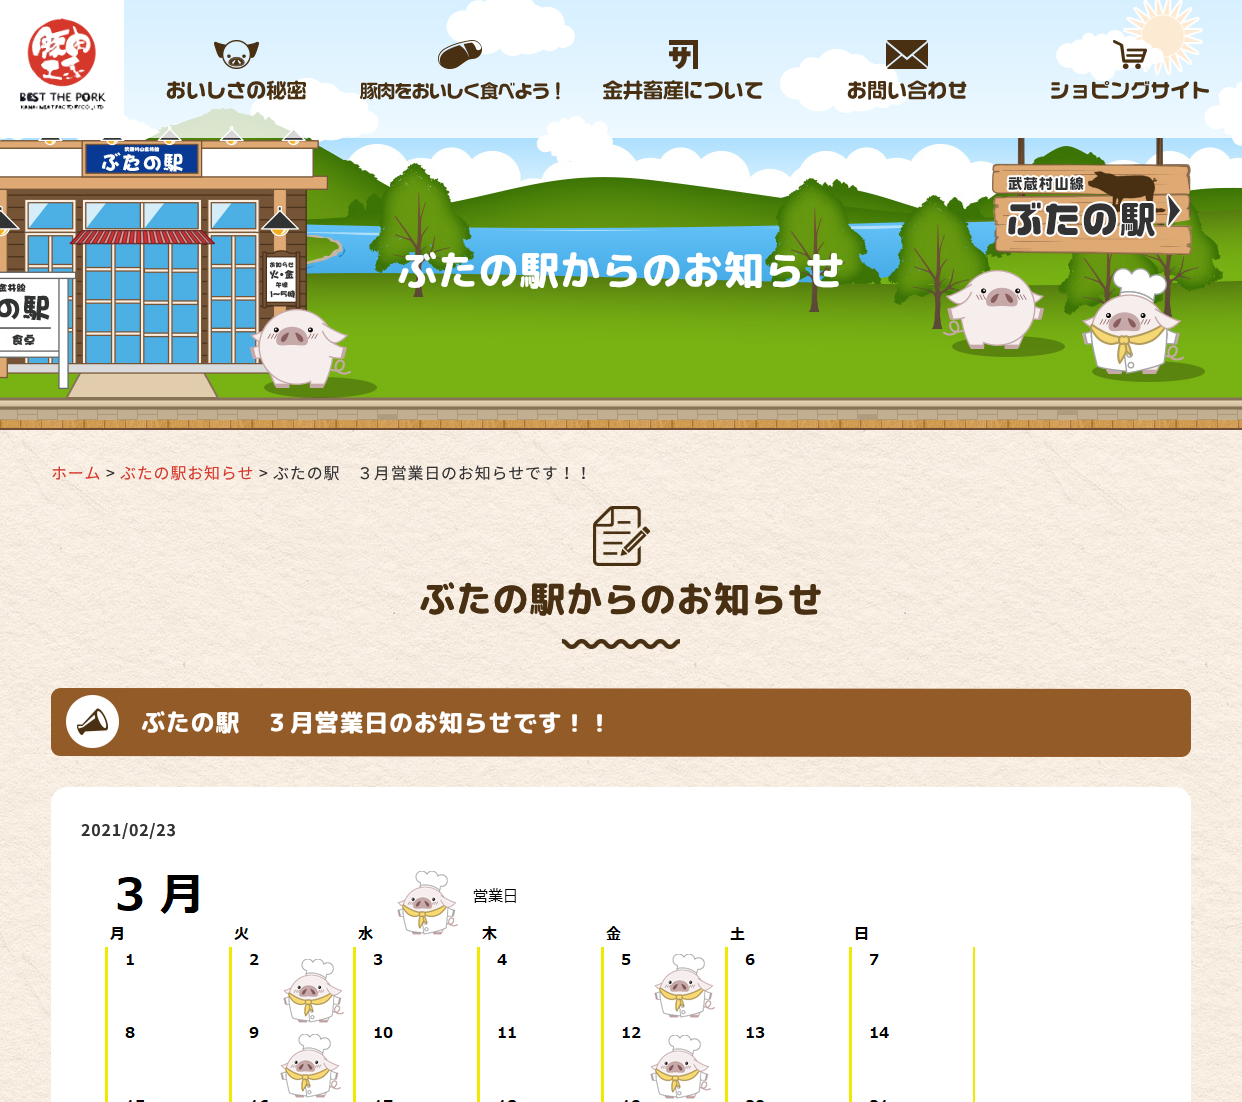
void draw(SkCanvas* canvas) {
	SkPaint paint;
	paint.setAntiAlias(true);
	auto spacedText = [&](const char* s, float x, float y, const SkFont& font, const SkPaint& ink, float letter, float word) {
		std::vector<SkGlyphID> glyphs(font.countText(s, strlen(s), SkTextEncoding::kUTF8));
		std::vector<float> xs(glyphs.size());
		font.textToGlyphs(s, strlen(s), SkTextEncoding::kUTF8, glyphs);
		font.getXPos(glyphs, xs, x);
		float extra = 0;
		for (size_t i = 0; i < glyphs.size(); i++) {
			xs[i] += extra;
			extra += letter + word * (glyphs[i] == font.unicharToGlyph(' '));
		}
		canvas->drawTextBlob(SkTextBlob::MakeFromPosHGlyphs(glyphs, xs, y, font), 0, 0, ink);
	};
	auto svgPath = [&](const char* data, bool evenOdd = false) {
		SkPath result = *SkParsePath::FromSVGString(data);
		if (evenOdd) result.setFillType(SkPathFillType::kEvenOdd);
		return result;
	};
	canvas->clear(0xffffffff);
	canvas->drawImageRect(SkImages::DeferredFromEncodedData(SkData::MakeFromFileName("img8.png")), SkRect::MakeXYWH(0, 0, 1242, 420), SkSamplingOptions());
	paint.setColor(0xccffffff);
	canvas->drawRect(SkRect::MakeXYWH(124, 0, 1118, 138), paint);
	paint.setColor(0xffffffff);
	canvas->drawRect(SkRect::MakeXYWH(0, 0, 124, 138), paint);
	canvas->drawImageRect(SkImages::DeferredFromEncodedData(SkData::MakeFromFileName("img1.png")), SkRect::MakeXYWH(20, 18, 86, 93), SkSamplingOptions());
	canvas->drawImageRect(SkImages::DeferredFromEncodedData(SkData::MakeFromFileName("img2.png")), SkRect::MakeXYWH(166, 40, 140, 60), SkSamplingOptions());
	canvas->drawImageRect(SkImages::DeferredFromEncodedData(SkData::MakeFromFileName("img3.png")), SkRect::MakeXYWH(360, 40, 200, 60), SkSamplingOptions());
	canvas->drawImageRect(SkImages::DeferredFromEncodedData(SkData::MakeFromFileName("img4.png")), SkRect::MakeXYWH(603, 40, 160, 60), SkSamplingOptions());
	canvas->drawImageRect(SkImages::DeferredFromEncodedData(SkData::MakeFromFileName("img5.png")), SkRect::MakeXYWH(847, 40, 120, 60), SkSamplingOptions());
	canvas->drawImageRect(SkImages::DeferredFromEncodedData(SkData::MakeFromFileName("img6.png")), SkRect::MakeXYWH(1051, 40, 158, 59), SkSamplingOptions());
	canvas->drawImageRect(SkImages::DeferredFromEncodedData(SkData::MakeFromFileName("img7.png")), SkRect::MakeXYWH(992, 138, 200, 117), SkSamplingOptions());
	SkFont f1(fontMgr->matchFamilyStyle("Rounded Mplus 1c", SkFontStyle(800, SkFontStyle::kNormal_Width, SkFontStyle::kUpright_Slant)), 40);
	f1.setSubpixel(true);
	spacedText("ぶたの駅からのお知らせ", 397, 285, f1, paint, 0.8, 0);
	canvas->drawImageRect(SkImages::DeferredFromEncodedData(SkData::MakeFromFileName("img9.png")), SkRect::MakeXYWH(0, 430, 1242, 672), SkSamplingOptions());
	canvas->drawImageRect(SkImages::DeferredFromEncodedData(SkData::MakeFromFileName("img10.png")), SkRect::MakeXYWH(0, 420, 1242, 10), SkSamplingOptions());
	SkFont f2(fontMgr->matchFamilyStyle("Noto Sans JP", SkFontStyle::Normal()), 16);
	f2.setSubpixel(true);
	paint.setColor(0xffd6382c);
	spacedText("ホーム", 51, 479, f2, paint, 0.8, 0);
	paint.setColor(0xff333333);
	spacedText(">", 106, 479, f2, paint, 0.8, 0);
	paint.setColor(0xffd6382c);
	spacedText("ぶたの駅お知らせ", 120, 479, f2, paint, 0.8, 0);
	paint.setColor(0xff333333);
	spacedText("> ぶたの駅　３月営業日のお知らせです！！", 259, 479, f2, paint, 0.8, 0);
	canvas->drawImageRect(SkImages::DeferredFromEncodedData(SkData::MakeFromFileName("img11.png")), SkRect::MakeXYWH(561, 639, 119, 10), SkSamplingOptions());
	canvas->drawImageRect(SkImages::DeferredFromEncodedData(SkData::MakeFromFileName("img12.png")), SkRect::MakeXYWH(593, 506, 58, 60), SkSamplingOptions());
	SkFont f3(fontMgr->matchFamilyStyle("Rounded Mplus 1c", SkFontStyle(800, SkFontStyle::kNormal_Width, SkFontStyle::kUpright_Slant)), 36);
	f3.setSubpixel(true);
	paint.setColor(0xff493012);
	canvas->save();
	canvas->rotate(0.1, 419, 612);
	spacedText("ぶたの駅からのお知らせ", 419, 612, f3, paint, 0.8, 0);
	canvas->restore();
	paint.setColor(0xff9f6340);
	canvas->drawPath(svgPath("M61 688L1181 689C1187 689 1191 693 1191 699V747C1191 753 1186 757 1181 757L61 756C55 756 51 752 51 746V698C51 692 56 688 61 688Z"), paint);
	paint.setColor(0x80875110);
	canvas->drawPath(svgPath("M61 688L1181 689C1187 689 1191 693 1191 699V747C1191 753 1186 757 1181 757L61 756C55 756 51 752 51 746V698C51 692 56 688 61 688Z"), paint);
	canvas->drawImageRect(SkImages::DeferredFromEncodedData(SkData::MakeFromFileName("img13.png")), SkRect::MakeXYWH(66, 695, 53, 53), SkSamplingOptions());
	SkFont f4(fontMgr->matchFamilyStyle("Rounded Mplus 1c", SkFontStyle(800, SkFontStyle::kNormal_Width, SkFontStyle::kUpright_Slant)), 24);
	f4.setSubpixel(true);
	paint.setColor(0xffffffff);
	canvas->save();
	canvas->rotate(0.1, 141, 731);
	spacedText("ぶたの駅　３月営業日のお知らせです！！", 141, 731, f4, paint, 0.8, 0);
	canvas->restore();
	canvas->drawRoundRect(SkRect::MakeXYWH(51, 787, 1140, 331), 16, 16, paint);
	SkFont f5(fontMgr->matchFamilyStyle("Noto Sans JP", SkFontStyle::Bold()), 16);
	f5.setSubpixel(true);
	paint.setColor(0xff333333);
	spacedText("2021/02/23", 81, 836, f5, paint, 0.8, 0);
	canvas->drawImageRect(SkImages::DeferredFromEncodedData(SkData::MakeFromFileName("img14.png")), SkRect::MakeXYWH(105, 871, 870, 231), SkSamplingOptions());
}
